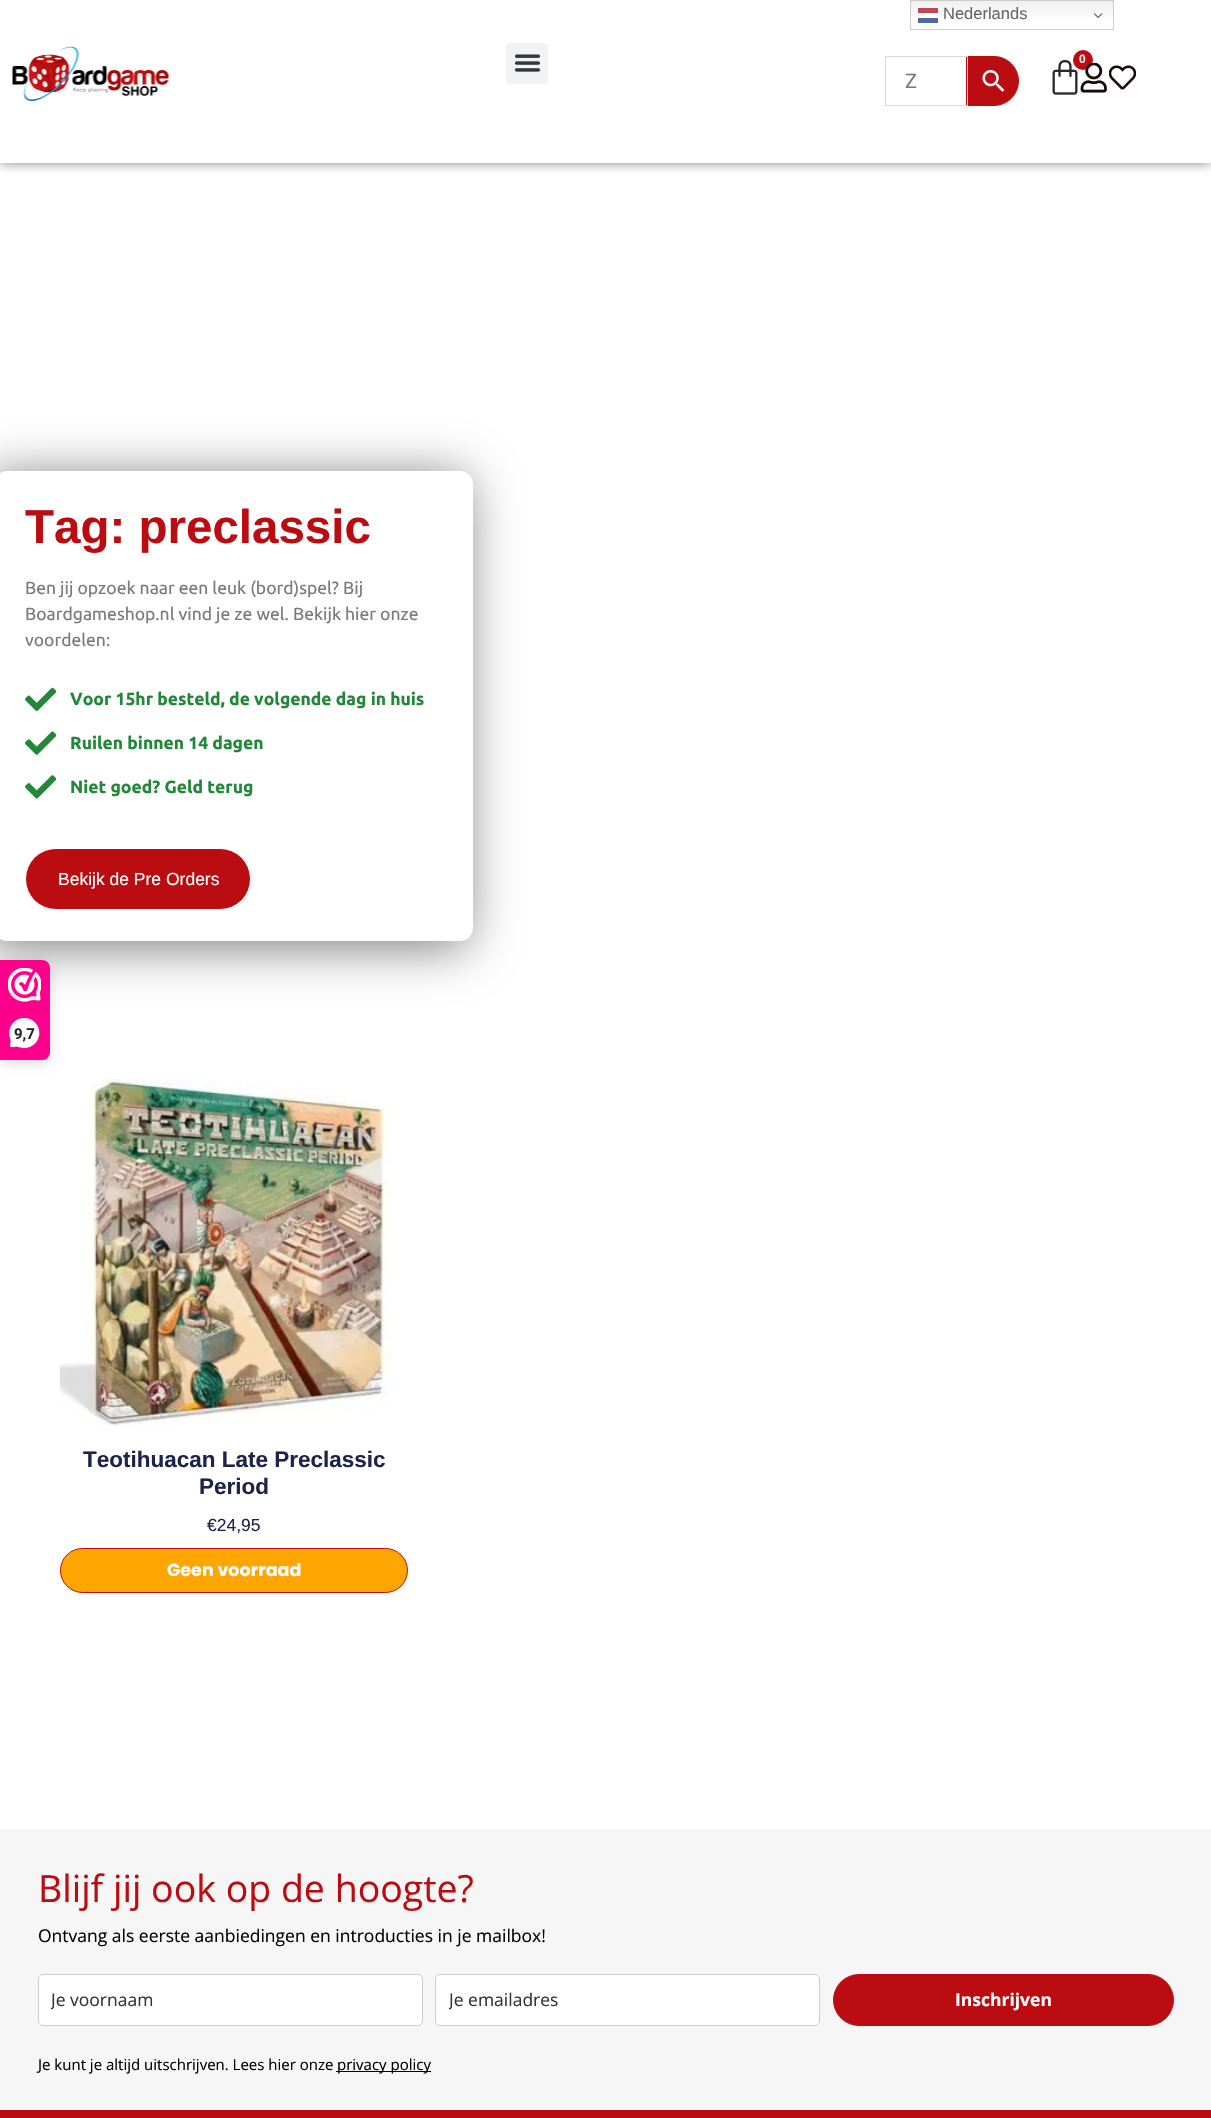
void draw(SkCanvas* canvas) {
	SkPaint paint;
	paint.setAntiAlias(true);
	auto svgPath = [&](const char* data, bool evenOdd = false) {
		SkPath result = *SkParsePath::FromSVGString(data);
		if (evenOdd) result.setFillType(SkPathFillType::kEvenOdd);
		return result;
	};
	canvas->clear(0xffffffff);
	paint.setColor(0x80000000);
	paint.setMaskFilter(SkMaskFilter::MakeBlur(kNormal_SkBlurStyle, 6));
	canvas->drawRoundRect(SkRect::MakeXYWH(0, 0, 1211, 163), 1, 1, paint);
	paint.setMaskFilter(nullptr);
	paint.setColor(0xffffffff);
	canvas->drawPath(svgPath("M0 0H1211V162C1211 162.5 1210.5 163 1210 163H0Z"), paint);
	{
		const SkColor colors[] = {0xffefefef, 0xffffffff};
		const float stops[] = {0, 0.7};
		const SkPoint ends[] = {{1012, 0}, {1012, 30}};
		paint.setShader(SkGradientShader::MakeLinear(ends, colors, stops, 2, SkTileMode::kClamp));
		paint.setAlpha(255);
	}
	canvas->drawRect(SkRect::MakeXYWH(911, 1, 202, 17), paint);
	{
		const SkColor colors[] = {0xfffcfcfc, 0xffffffff};
		const float stops[] = {0, 0.7};
		const SkPoint ends[] = {{1012, 0}, {1012, 30}};
		paint.setShader(SkGradientShader::MakeLinear(ends, colors, stops, 2, SkTileMode::kClamp));
		paint.setAlpha(255);
	}
	canvas->drawRect(SkRect::MakeXYWH(918, 13, 20, 5), paint);
	paint.setStroke(true);
	paint.setStrokeWidth(1);
	paint.setShader(nullptr);
	paint.setColor(0xffcccccc);
	canvas->drawRect(SkRect::MakeXYWH(910.5, 0.5, 203, 29), paint);
	paint.setStroke(false);
	paint.setColor(0xffbe4953);
	canvas->drawRect(SkRect::MakeXYWH(918, 8, 20, 5), paint);
	SkFont f1(fontMgr->matchFamilyStyle("Liberation Sans", SkFontStyle::Normal()), 16.5);
	f1.setSubpixel(true);
	paint.setColor(0xff666666);
	canvas->drawString("Nederlands", 943, 19, f1, paint);
	canvas->drawImageRect(SkImages::DeferredFromEncodedData(SkData::MakeFromFileName("img1.png")), SkRect::MakeXYWH(1094, 13, 9, 6), SkSamplingOptions());
	paint.setColor(0xff4d6ba2);
	canvas->drawRect(SkRect::MakeXYWH(918, 18, 20, 5), paint);
	canvas->drawImageRect(SkImages::DeferredFromEncodedData(SkData::MakeFromFileName("img2.png")), SkRect::MakeXYWH(12, 46, 157, 55), SkSamplingOptions());
	paint.setColor(0xfff2f2f2);
	canvas->drawRoundRect(SkRect::MakeXYWH(506, 43, 42, 41), 4, 4, paint);
	canvas->drawImageRect(SkImages::DeferredFromEncodedData(SkData::MakeFromFileName("img3.png")), SkRect::MakeXYWH(514, 54, 27, 18), SkSamplingOptions());
	canvas->drawImageRect(SkImages::DeferredFromEncodedData(SkData::MakeFromFileName("img4.png")), SkRect::MakeXYWH(1052, 60, 26, 35), SkSamplingOptions());
	paint.setColor(0xffbb0d11);
	canvas->drawCircle(1083, 60, 10, paint);
	SkFont f2(fontMgr->matchFamilyStyle("Liberation Sans", SkFontStyle::Bold()), 12);
	f2.setSubpixel(true);
	paint.setColor(0xffebeaf2);
	canvas->drawString("0", 1079, 63, f2, paint);
	canvas->drawImageRect(SkImages::DeferredFromEncodedData(SkData::MakeFromFileName("img5.png")), SkRect::MakeXYWH(1080, 63, 27, 30), SkSamplingOptions());
	canvas->drawImageRect(SkImages::DeferredFromEncodedData(SkData::MakeFromFileName("img6.png")), SkRect::MakeXYWH(1109, 65, 27, 25), SkSamplingOptions());
	paint.setColor(0xffbb0d11);
	canvas->drawPath(svgPath("M966.5 56.5H994C1007.5 56.5 1018.5 67.5 1018.5 81C1018.5 94.5 1007.5 105.5 994 105.5H966.5Z"), paint);
	paint.setStroke(true);
	canvas->drawPath(svgPath("M966.5 56.5H994C1007.5 56.5 1018.5 67.5 1018.5 81C1018.5 94.5 1007.5 105.5 994 105.5H966.5Z"), paint);
	paint.setColor(0xffd8d8d8);
	canvas->drawRect(SkRect::MakeXYWH(885.5, 56.5, 82, 49), paint);
	SkFont f3(fontMgr->matchFamilyStyle("Roboto", SkFontStyle::Normal()), 20);
	f3.setSubpixel(true);
	paint.setStroke(false);
	paint.setColor(0xff7a7a7a);
	canvas->drawString("Z", 905, 88, f3, paint);
	canvas->drawImageRect(SkImages::DeferredFromEncodedData(SkData::MakeFromFileName("img7.png")), SkRect::MakeXYWH(982, 70, 23, 22), SkSamplingOptions());
	canvas->drawImageRect(SkImages::DeferredFromEncodedData(SkData::MakeFromFileName("img13.png")), SkRect::MakeXYWH(60, 1079, 332, 348), SkSamplingOptions());
	paint.setColor(0x26000000);
	paint.setMaskFilter(SkMaskFilter::MakeBlur(kNormal_SkBlurStyle, 6));
	canvas->drawRoundRect(SkRect::MakeXYWH(0, 963, 50, 100), 8, 8, paint);
	paint.setMaskFilter(nullptr);
	paint.setColor(0x80000000);
	paint.setMaskFilter(SkMaskFilter::MakeBlur(kNormal_SkBlurStyle, 25));
	canvas->drawRoundRect(SkRect::MakeXYWH(-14, 475, 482, 473), 14, 14, paint);
	paint.setMaskFilter(nullptr);
	paint.setColor(0xfffe008c);
	canvas->drawPath(svgPath("M0 960H42C46.5 960 50 963.5 50 968V1052C50 1056.5 46.5 1060 42 1060H0Z"), paint);
	canvas->drawImageRect(SkImages::DeferredFromEncodedData(SkData::MakeFromFileName("img8.png")), SkRect::MakeXYWH(8, 968, 33, 34), SkSamplingOptions());
	paint.setColor(0xffd80077);
	canvas->drawRect(SkRect::MakeXYWH(0, 1009, 49, 1), paint);
	canvas->drawImageRect(SkImages::DeferredFromEncodedData(SkData::MakeFromFileName("img9.png")), SkRect::MakeXYWH(9, 1017, 31, 32), SkSamplingOptions());
	SkFont f4(fontMgr->matchFamilyStyle("Roboto", SkFontStyle::Bold()), 15);
	f4.setSubpixel(true);
	paint.setColor(0xff272626);
	canvas->drawString("9,7", 14, 1039, f4, paint);
	paint.setColor(0xffffffff);
	canvas->drawRoundRect(SkRect::MakeXYWH(-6, 471, 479, 470), 13, 13, paint);
	SkFont f5(fontMgr->matchFamilyStyle("Liberation Sans", SkFontStyle::Bold()), 47.5);
	f5.setSubpixel(true);
	paint.setColor(0xffbb0d11);
	canvas->drawString("Tag: preclassic", 25, 543, f5, paint);
	SkFont f6(fontMgr->matchFamilyStyle("Ubuntu", SkFontStyle::Normal()), 17.5);
	f6.setSubpixel(true);
	paint.setColor(0xff7a7a7a);
	canvas->drawString("Ben jij opzoek naar een leuk (bord)spel? Bij", 25, 594, f6, paint);
	canvas->drawString("Boardgameshop.nl vind je ze wel. Bekijk hier onze", 25, 620, f6, paint);
	canvas->drawString("voordelen:", 25, 646, f6, paint);
	canvas->drawImageRect(SkImages::DeferredFromEncodedData(SkData::MakeFromFileName("img10.png")), SkRect::MakeXYWH(25, 687, 31, 24), SkSamplingOptions());
	SkFont f7(fontMgr->matchFamilyStyle("Ubuntu", SkFontStyle::Bold()), 17.5);
	f7.setSubpixel(true);
	paint.setColor(0xff218838);
	canvas->drawString("Voor 15hr besteld, de volgende dag in huis", 70, 705, f7, paint);
	canvas->drawImageRect(SkImages::DeferredFromEncodedData(SkData::MakeFromFileName("img11.png")), SkRect::MakeXYWH(25, 731, 31, 24), SkSamplingOptions());
	canvas->drawString("Ruilen binnen 14 dagen", 70, 749, f7, paint);
	canvas->drawImageRect(SkImages::DeferredFromEncodedData(SkData::MakeFromFileName("img12.png")), SkRect::MakeXYWH(25, 775, 31, 24), SkSamplingOptions());
	canvas->drawString("Niet goed? Geld terug", 70, 793, f7, paint);
	paint.setColor(0xffbb0d11);
	canvas->drawRoundRect(SkRect::MakeXYWH(25.5, 848.5, 225, 61), 30.5, 30.5, paint);
	paint.setStroke(true);
	paint.setColor(0xffffffff);
	canvas->drawRoundRect(SkRect::MakeXYWH(25.5, 848.5, 225, 61), 30.5, 30.5, paint);
	SkFont f8(fontMgr->matchFamilyStyle("Liberation Sans", SkFontStyle::Normal()), 17.5);
	f8.setSubpixel(true);
	paint.setStroke(false);
	canvas->drawString("Bekijk de Pre Orders", 58, 885, f8, paint);
	SkFont f9(fontMgr->matchFamilyStyle("Liberation Sans", SkFontStyle::Bold()), 22.5);
	f9.setSubpixel(true);
	paint.setColor(0xff1c244b);
	canvas->drawString("Teotihuacan Late Preclassic", 83, 1467, f9, paint);
	canvas->drawString("Period", 199, 1494, f9, paint);
	canvas->drawString("€24,95", 207, 1531, f8, paint);
	paint.setColor(0xffffa500);
	canvas->drawRoundRect(SkRect::MakeXYWH(60.5, 1548.5, 347, 44), 22, 22, paint);
	paint.setStroke(true);
	paint.setColor(0xffbb0d11);
	canvas->drawRoundRect(SkRect::MakeXYWH(60.5, 1548.5, 347, 44), 22, 22, paint);
	SkFont f10(fontMgr->matchFamilyStyle("Poppins", SkFontStyle::Bold()), 17.5);
	f10.setSubpixel(true);
	paint.setStroke(false);
	paint.setColor(0xffffffff);
	canvas->drawString("Geen voorraad", 167, 1576, f10, paint);
	paint.setColor(0xfff6f6f6);
	canvas->drawRect(SkRect::MakeXYWH(0, 1829, 1211, 281), paint);
	SkFont f11(fontMgr->matchFamilyStyle("Open Sans", SkFontStyle::Normal()), 37.5);
	f11.setSubpixel(true);
	paint.setColor(0xffbb0d11);
	canvas->drawString("Blijf jij ook op de hoogte?", 38, 1902, f11, paint);
	SkFont f12(fontMgr->matchFamilyStyle("Open Sans", SkFontStyle::Normal()), 17.5);
	f12.setSubpixel(true);
	paint.setColor(0xff000000);
	canvas->drawString("Ontvang als eerste aanbiedingen en introducties in je mailbox!", 38, 1942, f12, paint);
	paint.setColor(0xffffffff);
	canvas->drawRoundRect(SkRect::MakeXYWH(38.5, 1974.5, 384, 51), 4.5, 4.5, paint);
	paint.setStroke(true);
	paint.setColor(0xffcccccc);
	canvas->drawRoundRect(SkRect::MakeXYWH(38.5, 1974.5, 384, 51), 4.5, 4.5, paint);
	canvas->save();
	canvas->clipRect(SkRect::MakeXYWH(51, 1988, 358, 23));
	paint.setStroke(false);
	paint.setColor(0xff333333);
	canvas->drawString("Je voornaam", 51, 2006, f12, paint);
	canvas->restore();
	paint.setColor(0xffffffff);
	canvas->drawRoundRect(SkRect::MakeXYWH(435.5, 1974.5, 384, 51), 4.5, 4.5, paint);
	paint.setStroke(true);
	paint.setColor(0xffcccccc);
	canvas->drawRoundRect(SkRect::MakeXYWH(435.5, 1974.5, 384, 51), 4.5, 4.5, paint);
	canvas->save();
	canvas->clipRect(SkRect::MakeXYWH(449, 1988, 357, 23));
	paint.setStroke(false);
	paint.setColor(0xff333333);
	canvas->drawString("Je emailadres", 449, 2006, f12, paint);
	canvas->restore();
	paint.setColor(0xffbb0d11);
	canvas->drawRoundRect(SkRect::MakeXYWH(833.5, 1974.5, 340, 51), 25.5, 25.5, paint);
	paint.setStroke(true);
	canvas->drawRoundRect(SkRect::MakeXYWH(833.5, 1974.5, 340, 51), 25.5, 25.5, paint);
	SkFont f13(fontMgr->matchFamilyStyle("Open Sans", SkFontStyle::Bold()), 17.5);
	f13.setSubpixel(true);
	paint.setStroke(false);
	paint.setColor(0xffffffff);
	canvas->drawString("Inschrijven", 955, 2006, f13, paint);
	SkFont f14(fontMgr->matchFamilyStyle("Open Sans", SkFontStyle::Normal()), 15);
	f14.setSubpixel(true);
	paint.setColor(0xff000000);
	canvas->drawString("Je kunt je altijd uitschrijven. Lees hier onze", 38, 2070, f14, paint);
	canvas->drawRect(SkRect::MakeXYWH(336, 2071, 95, 1), paint);
	canvas->drawString("privacy policy", 337, 2070, f14, paint);
	paint.setColor(0xffbb0d11);
	canvas->drawRect(SkRect::MakeXYWH(0, 2110, 1211, 8), paint);
}
